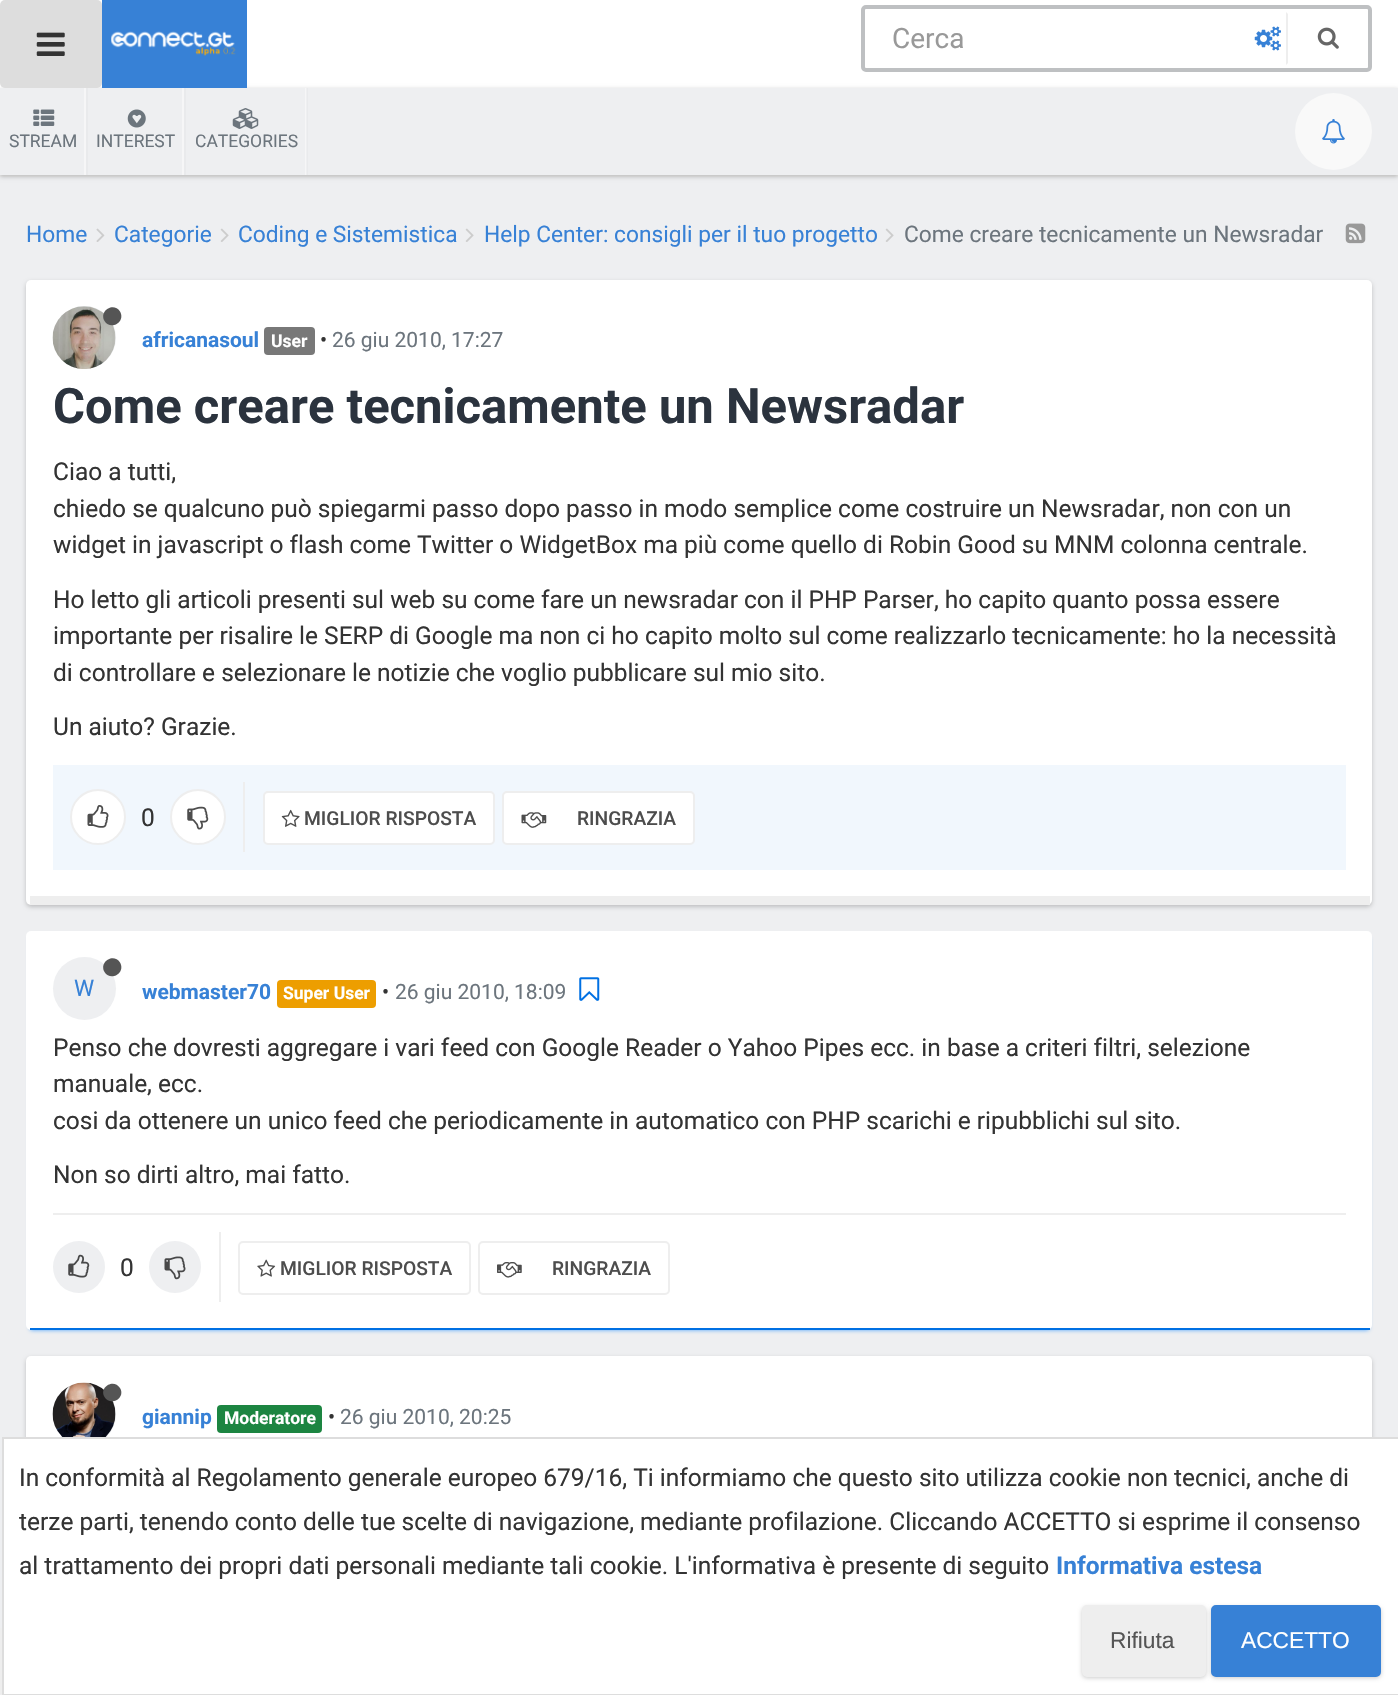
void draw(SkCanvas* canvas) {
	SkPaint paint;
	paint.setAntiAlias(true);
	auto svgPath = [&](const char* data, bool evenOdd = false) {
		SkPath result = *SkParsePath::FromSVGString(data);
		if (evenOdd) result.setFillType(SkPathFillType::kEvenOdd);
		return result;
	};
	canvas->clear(0xffeeeff1);
	paint.setColor(0xffffffff);
	canvas->drawRect(SkRect::MakeXYWH(0, 0, 1398, 88), paint);
	paint.setColor(0xffeeeeee);
	canvas->drawRect(SkRect::MakeXYWH(0, 175, 1398, 2), paint);
	paint.setColor(0x33000000);
	paint.setMaskFilter(SkMaskFilter::MakeBlur(kNormal_SkBlurStyle, 2));
	canvas->drawRect(SkRect::MakeXYWH(0, 89, 1398, 88), paint);
	paint.setMaskFilter(nullptr);
	paint.setColor(0xffdddddd);
	canvas->drawRoundRect(SkRect::MakeXYWH(0, 0, 102, 88), 5, 5, paint);
	canvas->drawImageRect(SkImages::DeferredFromEncodedData(SkData::MakeFromFileName("img1.png")), SkRect::MakeXYWH(36, 32, 29, 24), SkSamplingOptions());
	paint.setColor(0xff3781d6);
	canvas->drawRect(SkRect::MakeXYWH(111, 9, 127, 70), paint);
	canvas->drawImageRect(SkImages::DeferredFromEncodedData(SkData::MakeFromFileName("img2.png")), SkRect::MakeXYWH(111, 31, 125, 25), SkSamplingOptions());
	paint.setStroke(true);
	paint.setStrokeWidth(9);
	canvas->drawRect(SkRect::MakeXYWH(106.5, 4.5, 136, 79), paint);
	paint.setStrokeWidth(4);
	paint.setColor(0xffbec0c2);
	canvas->drawRoundRect(SkRect::MakeXYWH(863, 7, 507, 63), 3, 3, paint);
	SkFont f1(fontMgr->matchFamilyStyle("Roboto", SkFontStyle::Normal()), 28);
	f1.setSubpixel(true);
	paint.setStroke(false);
	paint.setColor(0xff999999);
	canvas->drawString("Cerca", 892, 48, f1, paint);
	canvas->drawImageRect(SkImages::DeferredFromEncodedData(SkData::MakeFromFileName("img3.png")), SkRect::MakeXYWH(1254, 26, 27, 25), SkSamplingOptions());
	paint.setColor(0xffeeeeee);
	canvas->drawPath(svgPath("M1286 65V12L1288 14V63Z"), paint);
	canvas->drawImageRect(SkImages::DeferredFromEncodedData(SkData::MakeFromFileName("img4.png")), SkRect::MakeXYWH(1317, 27, 22, 22), SkSamplingOptions());
	paint.setColor(0xffeeeff1);
	canvas->drawRect(SkRect::MakeXYWH(0, 88, 1398, 87), paint);
	paint.setColor(0xffe9eaec);
	canvas->drawRect(SkRect::MakeXYWH(307, 88, 1, 87), paint);
	paint.setColor(0xfff6f6f7);
	canvas->drawRect(SkRect::MakeXYWH(84, 88, 2, 87), paint);
	paint.setColor(0xffe9eaec);
	canvas->drawRect(SkRect::MakeXYWH(86, 88, 2, 87), paint);
	canvas->drawImageRect(SkImages::DeferredFromEncodedData(SkData::MakeFromFileName("img5.png")), SkRect::MakeXYWH(33, 109, 22, 17), SkSamplingOptions());
	SkFont f2(fontMgr->matchFamilyStyle("Roboto", SkFontStyle::Normal()), 17.5);
	f2.setSubpixel(true);
	paint.setColor(0xff6c757d);
	canvas->drawString("STREAM", 9, 147, f2, paint);
	paint.setColor(0xfff6f6f7);
	canvas->drawRect(SkRect::MakeXYWH(182, 88, 2, 87), paint);
	paint.setColor(0xffe9eaec);
	canvas->drawRect(SkRect::MakeXYWH(184, 88, 2, 87), paint);
	canvas->drawImageRect(SkImages::DeferredFromEncodedData(SkData::MakeFromFileName("img6.png")), SkRect::MakeXYWH(127, 109, 19, 19), SkSamplingOptions());
	paint.setColor(0xff6c757d);
	canvas->drawString("INTEREST", 96, 147, f2, paint);
	paint.setColor(0xfff6f6f7);
	canvas->drawRect(SkRect::MakeXYWH(305, 88, 1, 87), paint);
	canvas->drawImageRect(SkImages::DeferredFromEncodedData(SkData::MakeFromFileName("img7.png")), SkRect::MakeXYWH(232, 108, 27, 21), SkSamplingOptions());
	paint.setColor(0xff6c757d);
	canvas->drawString("CATEGORIES", 195, 147, f2, paint);
	paint.setColor(0xfff9f9f9);
	canvas->drawCircle(1333.5, 131.5, 38.5, paint);
	canvas->drawImageRect(SkImages::DeferredFromEncodedData(SkData::MakeFromFileName("img8.png")), SkRect::MakeXYWH(1322, 119, 23, 25), SkSamplingOptions());
	SkFont f3(fontMgr->matchFamilyStyle("Roboto", SkFontStyle::Normal()), 22.75);
	f3.setSubpixel(true);
	paint.setColor(0xff3781d6);
	canvas->drawString("Home", 26, 242, f3, paint);
	canvas->drawImageRect(SkImages::DeferredFromEncodedData(SkData::MakeFromFileName("img9.png")), SkRect::MakeXYWH(96, 228, 9, 14), SkSamplingOptions());
	canvas->drawString("Categorie", 114, 242, f3, paint);
	canvas->drawImageRect(SkImages::DeferredFromEncodedData(SkData::MakeFromFileName("img10.png")), SkRect::MakeXYWH(220, 228, 9, 14), SkSamplingOptions());
	canvas->drawString("Coding e Sistemistica", 238, 242, f3, paint);
	canvas->drawImageRect(SkImages::DeferredFromEncodedData(SkData::MakeFromFileName("img10.png")), SkRect::MakeXYWH(465, 228, 9, 14), SkSamplingOptions());
	canvas->drawString("Help Center: consigli per il tuo progetto", 484, 242, f3, paint);
	canvas->drawImageRect(SkImages::DeferredFromEncodedData(SkData::MakeFromFileName("img10.png")), SkRect::MakeXYWH(885, 228, 9, 14), SkSamplingOptions());
	paint.setColor(0xff6c757d);
	canvas->drawString("Come creare tecnicamente un Newsradar", 904, 242, f3, paint);
	canvas->drawImageRect(SkImages::DeferredFromEncodedData(SkData::MakeFromFileName("img11.png")), SkRect::MakeXYWH(1345, 223, 21, 21), SkSamplingOptions());
	paint.setColor(0x33000000);
	paint.setMaskFilter(SkMaskFilter::MakeBlur(kNormal_SkBlurStyle, 2));
	canvas->drawRoundRect(SkRect::MakeXYWH(26, 282, 1346, 625), 5, 5, paint);
	paint.setMaskFilter(nullptr);
	paint.setColor(0xffffffff);
	canvas->drawRoundRect(SkRect::MakeXYWH(26, 280, 1346, 625), 5, 5, paint);
	paint.setColor(0xffeeeeee);
	canvas->drawRect(SkRect::MakeXYWH(30, 896, 1340, 9), paint);
	paint.setColor(0xffeeeff1);
	canvas->drawCircle(84.5, 337.5, 31.5, paint);
	canvas->drawImageRect(SkImages::DeferredFromEncodedData(SkData::MakeFromFileName("img12.png")), SkRect::MakeXYWH(52, 306, 64, 63), SkSamplingOptions());
	paint.setColor(0xff555555);
	canvas->drawPath(svgPath("M120 311.5C126 322 110.5 331 104.5 321C98.5 310.5 114 301.5 120 311.5Z"), paint);
	SkFont f4(fontMgr->matchFamilyStyle("Roboto", SkFontStyle::Bold()), 21);
	f4.setSubpixel(true);
	paint.setColor(0xff3781d6);
	canvas->drawString("africanasoul", 142, 347, f4, paint);
	paint.setColor(0xff787878);
	canvas->drawRoundRect(SkRect::MakeXYWH(264, 327, 51, 28), 4, 4, paint);
	SkFont f5(fontMgr->matchFamilyStyle("Roboto", SkFontStyle::Bold()), 17.5);
	f5.setSubpixel(true);
	paint.setColor(0xffffffff);
	canvas->drawString("User", 271, 347, f5, paint);
	SkFont f6(fontMgr->matchFamilyStyle("Roboto", SkFontStyle::Normal()), 21);
	f6.setSubpixel(true);
	paint.setColor(0xff333333);
	canvas->drawString("•", 320, 347, f6, paint);
	paint.setColor(0xff6c757d);
	canvas->drawString("26 giu 2010, 17:27", 332, 347, f6, paint);
	SkFont f7(fontMgr->matchFamilyStyle("Roboto", SkFontStyle::Bold()), 49);
	f7.setSubpixel(true);
	paint.setColor(0xff2b333e);
	canvas->drawString("Come creare tecnicamente un Newsradar", 53, 423, f7, paint);
	SkFont f8(fontMgr->matchFamilyStyle("Roboto", SkFontStyle::Normal()), 24.5);
	f8.setSubpixel(true);
	paint.setColor(0xff333333);
	canvas->drawString("Ciao a tutti,", 53, 480, f8, paint);
	canvas->drawString("chiedo se qualcuno può spiegarmi passo dopo passo in modo semplice come costruire un Newsradar, non con un", 53, 517, f8, paint);
	canvas->drawString("widget in javascript o flash come Twitter o WidgetBox ma più come quello di Robin Good su MNM colonna centrale.", 53, 553, f8, paint);
	canvas->drawString("Ho letto gli articoli presenti sul web su come fare un newsradar con il PHP Parser, ho capito quanto possa essere", 53, 608, f8, paint);
	canvas->drawString("importante per risalire le SERP di Google ma non ci ho capito molto sul come realizzarlo tecnicamente: ho la necessità", 53, 644, f8, paint);
	canvas->drawString("di controllare e selezionare le notizie che voglio pubblicare sul mio sito.", 53, 681, f8, paint);
	canvas->drawString("Un aiuto? Grazie.", 53, 735, f8, paint);
	paint.setColor(0xfff1f7fd);
	canvas->drawRect(SkRect::MakeXYWH(53, 765, 1293, 105), paint);
	paint.setColor(0xffeeeeee);
	canvas->drawRect(SkRect::MakeXYWH(243, 782, 2, 70), paint);
	paint.setColor(0xffffffff);
	canvas->drawCircle(98, 817, 27, paint);
	paint.setStroke(true);
	paint.setStrokeWidth(2);
	paint.setColor(0xffeeeeee);
	canvas->drawCircle(98, 817, 27, paint);
	canvas->drawImageRect(SkImages::DeferredFromEncodedData(SkData::MakeFromFileName("img13.png")), SkRect::MakeXYWH(87, 805, 22, 23), SkSamplingOptions());
	paint.setStroke(false);
	paint.setColor(0xff333333);
	canvas->drawString("0", 141, 826, f8, paint);
	paint.setColor(0xffffffff);
	canvas->drawCircle(198, 817, 27, paint);
	paint.setStroke(true);
	paint.setColor(0xffeeeeee);
	canvas->drawCircle(198, 817, 27, paint);
	canvas->drawImageRect(SkImages::DeferredFromEncodedData(SkData::MakeFromFileName("img14.png")), SkRect::MakeXYWH(187, 806, 22, 24), SkSamplingOptions());
	paint.setStroke(false);
	paint.setColor(0xffffffff);
	canvas->drawRoundRect(SkRect::MakeXYWH(264, 792, 230, 52), 4, 4, paint);
	paint.setStroke(true);
	paint.setColor(0xffeeeeee);
	canvas->drawRoundRect(SkRect::MakeXYWH(264, 792, 230, 52), 4, 4, paint);
	canvas->drawImageRect(SkImages::DeferredFromEncodedData(SkData::MakeFromFileName("img15.png")), SkRect::MakeXYWH(281, 809, 19, 18), SkSamplingOptions());
	SkFont f9(fontMgr->matchFamilyStyle("Roboto", SkFontStyle(500, SkFontStyle::kNormal_Width, SkFontStyle::kUpright_Slant)), 19.25);
	f9.setSubpixel(true);
	paint.setStroke(false);
	paint.setColor(0xff4d4d4d);
	canvas->drawString("MIGLIOR RISPOSTA", 304, 825, f9, paint);
	paint.setColor(0xffffffff);
	canvas->drawRoundRect(SkRect::MakeXYWH(503, 792, 191, 52), 4, 4, paint);
	paint.setStroke(true);
	paint.setColor(0xffeeeeee);
	canvas->drawRoundRect(SkRect::MakeXYWH(503, 792, 191, 52), 4, 4, paint);
	canvas->drawImageRect(SkImages::DeferredFromEncodedData(SkData::MakeFromFileName("img16.png")), SkRect::MakeXYWH(521, 812, 26, 16), SkSamplingOptions());
	paint.setStroke(false);
	paint.setColor(0xff4d4d4d);
	canvas->drawString("RINGRAZIA", 577, 825, f9, paint);
	paint.setColor(0xff4aa3ff);
	paint.setMaskFilter(SkMaskFilter::MakeBlur(kNormal_SkBlurStyle, 2));
	canvas->drawRoundRect(SkRect::MakeXYWH(30, 938, 1339, 392), 2, 2, paint);
	paint.setMaskFilter(nullptr);
	paint.setColor(0xffffffff);
	canvas->drawRoundRect(SkRect::MakeXYWH(26, 931, 1346, 399), 5, 5, paint);
	paint.setColor(0xff0070e3);
	canvas->drawRect(SkRect::MakeXYWH(30, 1328, 1340, 2), paint);
	paint.setColor(0xffeeeff1);
	canvas->drawCircle(84.5, 988.5, 31.5, paint);
	paint.setColor(0xff555555);
	canvas->drawPath(svgPath("M120 962.5C126 973 110.5 982 104.5 972C98.5 961.5 114 952.5 120 962.5Z"), paint);
	paint.setColor(0xff3781d6);
	canvas->drawString("W", 74, 996, f3, paint);
	canvas->drawString("webmaster70", 142, 999, f4, paint);
	paint.setColor(0xffed9e00);
	canvas->drawRoundRect(SkRect::MakeXYWH(277, 980, 99, 28), 4, 4, paint);
	paint.setColor(0xffffffff);
	canvas->drawString("Super User", 283, 999, f5, paint);
	paint.setColor(0xff333333);
	canvas->drawString("•", 382, 999, f6, paint);
	paint.setColor(0xff6c757d);
	canvas->drawString("26 giu 2010, 18:09", 395, 999, f6, paint);
	canvas->drawImageRect(SkImages::DeferredFromEncodedData(SkData::MakeFromFileName("img17.png")), SkRect::MakeXYWH(579, 977, 21, 24), SkSamplingOptions());
	paint.setColor(0xff333333);
	canvas->drawString("Penso che dovresti aggregare i vari feed con Google Reader o Yahoo Pipes ecc. in base a criteri filtri, selezione", 53, 1056, f8, paint);
	canvas->drawString("manuale, ecc.", 53, 1092, f8, paint);
	canvas->drawString("cosi da ottenere un unico feed che periodicamente in automatico con PHP scarichi e ripubblichi sul sito.", 53, 1129, f8, paint);
	canvas->drawString("Non so dirti altro, mai fatto.", 53, 1183, f8, paint);
	paint.setColor(0xffeeeeee);
	canvas->drawRect(SkRect::MakeXYWH(53, 1213, 1293, 2), paint);
	canvas->drawRect(SkRect::MakeXYWH(219, 1232, 2, 70), paint);
	paint.setColor(0xffeeeff1);
	canvas->drawCircle(79, 1267, 26, paint);
	canvas->drawImageRect(SkImages::DeferredFromEncodedData(SkData::MakeFromFileName("img18.png")), SkRect::MakeXYWH(68, 1254, 22, 24), SkSamplingOptions());
	paint.setColor(0xff333333);
	canvas->drawString("0", 120, 1276, f8, paint);
	paint.setColor(0xffeeeff1);
	canvas->drawCircle(175, 1267, 26, paint);
	canvas->drawImageRect(SkImages::DeferredFromEncodedData(SkData::MakeFromFileName("img19.png")), SkRect::MakeXYWH(164, 1256, 22, 24), SkSamplingOptions());
	paint.setStroke(true);
	paint.setColor(0xffeeeeee);
	canvas->drawRoundRect(SkRect::MakeXYWH(239, 1242, 231, 52), 4, 4, paint);
	canvas->drawImageRect(SkImages::DeferredFromEncodedData(SkData::MakeFromFileName("img20.png")), SkRect::MakeXYWH(257, 1259, 19, 18), SkSamplingOptions());
	paint.setStroke(false);
	paint.setColor(0xff4d4d4d);
	canvas->drawString("MIGLIOR RISPOSTA", 280, 1275, f9, paint);
	paint.setStroke(true);
	paint.setColor(0xffeeeeee);
	canvas->drawRoundRect(SkRect::MakeXYWH(479, 1242, 190, 52), 4, 4, paint);
	canvas->drawImageRect(SkImages::DeferredFromEncodedData(SkData::MakeFromFileName("img21.png")), SkRect::MakeXYWH(497, 1262, 25, 16), SkSamplingOptions());
	paint.setStroke(false);
	paint.setColor(0xff4d4d4d);
	canvas->drawString("RINGRAZIA", 552, 1275, f9, paint);
	paint.setColor(0x33000000);
	paint.setMaskFilter(SkMaskFilter::MakeBlur(kNormal_SkBlurStyle, 2));
	canvas->drawRoundRect(SkRect::MakeXYWH(26, 1358, 1346, 320), 5, 5, paint);
	paint.setMaskFilter(nullptr);
	paint.setColor(0xffffffff);
	canvas->drawRoundRect(SkRect::MakeXYWH(26, 1356, 1346, 321), 5, 5, paint);
	paint.setColor(0xffeeeff1);
	canvas->drawCircle(84.5, 1414.5, 31.5, paint);
	canvas->drawImageRect(SkImages::DeferredFromEncodedData(SkData::MakeFromFileName("img22.png")), SkRect::MakeXYWH(52, 1382, 64, 55), SkSamplingOptions());
	paint.setColor(0xff555555);
	canvas->drawPath(svgPath("M120 1388C126 1398 110.5 1407 104.5 1397C98.5 1387 114 1378 120 1388Z"), paint);
	paint.setColor(0xff3781d6);
	canvas->drawString("giannip", 142, 1424, f4, paint);
	paint.setColor(0xff1c8541);
	canvas->drawRoundRect(SkRect::MakeXYWH(217, 1405, 105, 28), 4, 4, paint);
	paint.setColor(0xffffffff);
	canvas->drawString("Moderatore", 224, 1424, f5, paint);
	paint.setColor(0xff333333);
	canvas->drawString("•", 328, 1424, f6, paint);
	paint.setColor(0xff6c757d);
	canvas->drawString("26 giu 2010, 20:25", 340, 1424, f6, paint);
	paint.setColor(0xffeeeeee);
	canvas->drawRect(SkRect::MakeXYWH(0, 1628, 2, 67), paint);
	paint.setColor(0xffffffff);
	canvas->drawRect(SkRect::MakeXYWH(3, 1438, 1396, 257), paint);
	paint.setStroke(true);
	paint.setColor(0xffdddddd);
	canvas->drawRect(SkRect::MakeXYWH(3, 1438, 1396, 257), paint);
	paint.setStroke(false);
	paint.setColor(0xff333333);
	canvas->drawString("In conformità al Regolamento generale europeo 679/16, Ti informiamo che questo sito utilizza cookie non tecnici, anche di", 19, 1486, f8, paint);
	canvas->drawString("terze parti, tenendo conto delle tue scelte di navigazione, mediante profilazione. Cliccando ACCETTO si esprime il consenso", 19, 1530, f8, paint);
	canvas->drawString("al trattamento dei propri dati personali mediante tali cookie. L'informativa è presente di seguito", 19, 1574, f8, paint);
	SkFont f10(fontMgr->matchFamilyStyle("Roboto", SkFontStyle::Bold()), 24.5);
	f10.setSubpixel(true);
	paint.setColor(0xff3781d6);
	canvas->drawString("Informativa estesa", 1056, 1574, f10, paint);
	paint.setColor(0x33000000);
	paint.setMaskFilter(SkMaskFilter::MakeBlur(kNormal_SkBlurStyle, 2));
	canvas->drawRoundRect(SkRect::MakeXYWH(1082, 1607, 124, 71), 5, 5, paint);
	paint.setMaskFilter(nullptr);
	paint.setColor(0xffeeeeee);
	canvas->drawRoundRect(SkRect::MakeXYWH(1083, 1606, 122, 70), 4, 4, paint);
	paint.setStroke(true);
	canvas->drawRoundRect(SkRect::MakeXYWH(1083, 1606, 122, 70), 4, 4, paint);
	SkFont f11(fontMgr->matchFamilyStyle("Liberation Sans", SkFontStyle::Normal()), 22.75);
	f11.setSubpixel(true);
	paint.setStroke(false);
	paint.setColor(0xff555555);
	canvas->drawString("Rifiuta", 1110, 1648, f11, paint);
	paint.setColor(0x33000000);
	paint.setMaskFilter(SkMaskFilter::MakeBlur(kNormal_SkBlurStyle, 2));
	canvas->drawRoundRect(SkRect::MakeXYWH(1211, 1607, 170, 71), 5, 5, paint);
	paint.setMaskFilter(nullptr);
	paint.setColor(0xff3781d6);
	canvas->drawRoundRect(SkRect::MakeXYWH(1212, 1606, 168, 70), 4, 4, paint);
	paint.setStroke(true);
	canvas->drawRoundRect(SkRect::MakeXYWH(1212, 1606, 168, 70), 4, 4, paint);
	paint.setStroke(false);
	paint.setColor(0xffffffff);
	canvas->drawString("ACCETTO", 1241, 1648, f11, paint);
}
